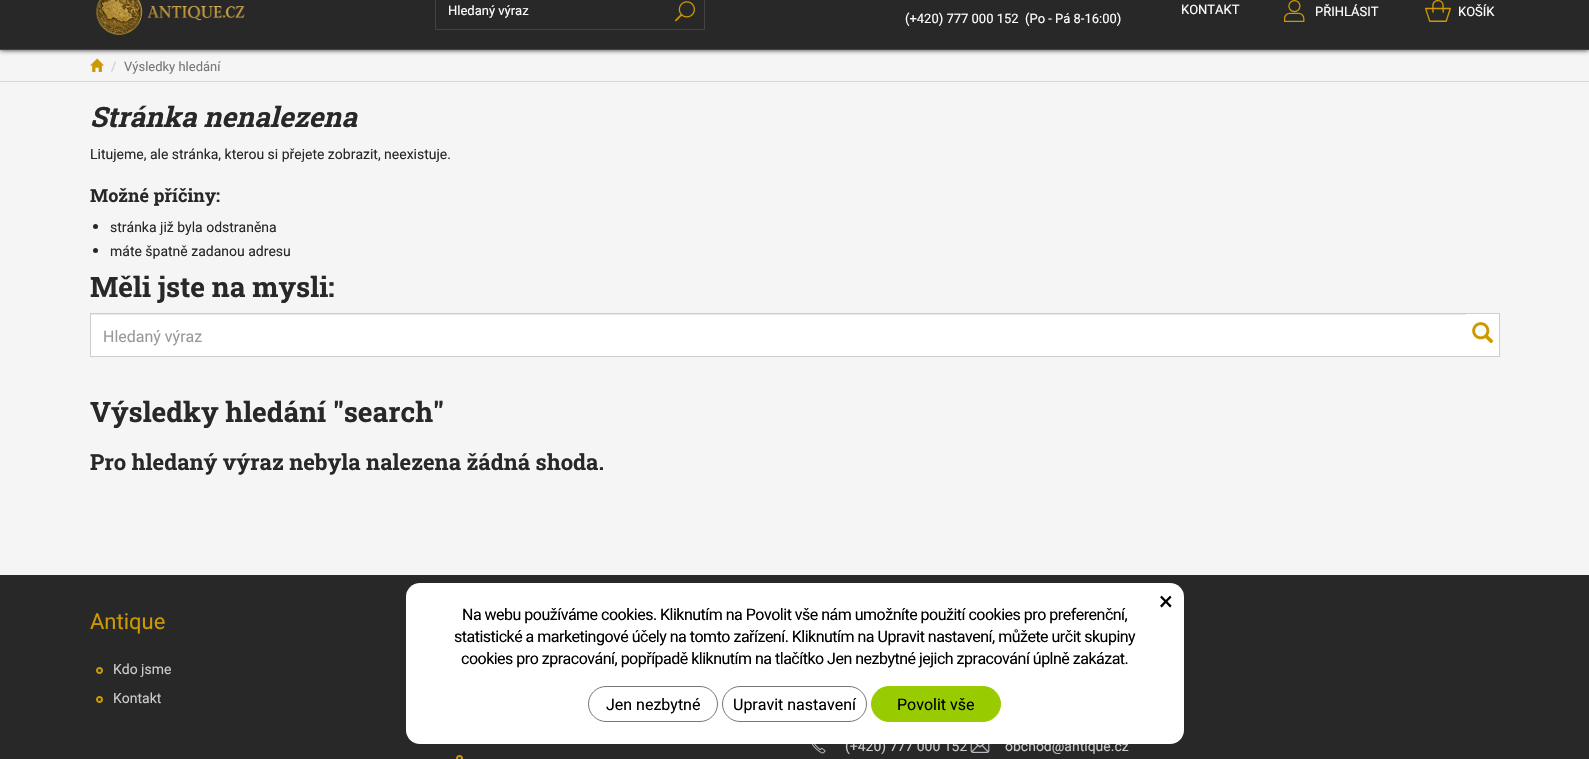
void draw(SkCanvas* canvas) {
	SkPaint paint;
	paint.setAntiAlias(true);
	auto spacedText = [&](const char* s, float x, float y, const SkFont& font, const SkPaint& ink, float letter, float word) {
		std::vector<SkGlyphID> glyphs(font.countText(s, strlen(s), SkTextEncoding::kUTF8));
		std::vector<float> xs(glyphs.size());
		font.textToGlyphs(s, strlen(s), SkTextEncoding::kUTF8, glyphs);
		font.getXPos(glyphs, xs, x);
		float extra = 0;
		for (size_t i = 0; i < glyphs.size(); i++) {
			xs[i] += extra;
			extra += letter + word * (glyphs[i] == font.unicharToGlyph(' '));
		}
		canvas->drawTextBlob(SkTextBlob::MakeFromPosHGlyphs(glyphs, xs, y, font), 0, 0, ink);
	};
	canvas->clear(0xfff5f5f5);
	canvas->drawImageRect(SkImages::DeferredFromEncodedData(SkData::MakeFromFileName("img5.png")), SkRect::MakeXYWH(90, 58, 14, 14), SkSamplingOptions());
	paint.setColor(0xff282828);
	paint.setMaskFilter(SkMaskFilter::MakeBlur(kNormal_SkBlurStyle, 2.5));
	canvas->drawRect(SkRect::MakeXYWH(0, -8, 1589, 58), paint);
	paint.setMaskFilter(nullptr);
	canvas->drawRect(SkRect::MakeXYWH(0, 0, 1589, 49), paint);
	canvas->drawImageRect(SkImages::DeferredFromEncodedData(SkData::MakeFromFileName("img1.png")), SkRect::MakeXYWH(96, 0, 149, 35), SkSamplingOptions());
	paint.setStroke(true);
	paint.setStrokeWidth(1);
	paint.setColor(0xff434343);
	canvas->drawRect(SkRect::MakeXYWH(435.5, -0.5, 269, 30), paint);
	SkFont f1(fontMgr->matchFamilyStyle("Roboto", SkFontStyle::Normal()), 13);
	f1.setSubpixel(true);
	paint.setStroke(false);
	paint.setColor(0xffffffff);
	canvas->drawString("Hledaný výraz", 448, 15, f1, paint);
	canvas->drawImageRect(SkImages::DeferredFromEncodedData(SkData::MakeFromFileName("img2.png")), SkRect::MakeXYWH(675, 1, 20, 21), SkSamplingOptions());
	canvas->drawString("(+420) 777 000 152", 905, 23, f1, paint);
	canvas->drawString("(Po - Pá 8-16:00)", 1025, 23, f1, paint);
	canvas->drawString("KONTAKT", 1181, 14, f1, paint);
	canvas->drawImageRect(SkImages::DeferredFromEncodedData(SkData::MakeFromFileName("img3.png")), SkRect::MakeXYWH(1284, 0, 21, 22), SkSamplingOptions());
	canvas->drawString("PŘIHLÁSIT", 1315, 16, f1, paint);
	canvas->drawImageRect(SkImages::DeferredFromEncodedData(SkData::MakeFromFileName("img4.png")), SkRect::MakeXYWH(1425, 0, 26, 22), SkSamplingOptions());
	canvas->drawString("KOŠÍK", 1458, 16, f1, paint);
	paint.setColor(0xff434343);
	canvas->drawRect(SkRect::MakeXYWH(0, 49, 1589, 1), paint);
	paint.setColor(0xffd7d7d7);
	canvas->drawRect(SkRect::MakeXYWH(0, 81, 1589, 1), paint);
	paint.setColor(0xffcccccc);
	canvas->drawString("/", 111, 71, f1, paint);
	paint.setColor(0xff777777);
	canvas->drawString("Výsledky hledání", 124, 71, f1, paint);
	SkFont f2(fontMgr->matchFamilyStyle("Roboto Slab", SkFontStyle::BoldItalic()), 28);
	f2.setSubpixel(true);
	paint.setColor(0xff282828);
	canvas->drawString("Stránka nenalezena", 90, 127, f2, paint);
	SkFont f3(fontMgr->matchFamilyStyle("Roboto", SkFontStyle::Normal()), 14);
	f3.setSubpixel(true);
	canvas->drawString("Litujeme, ale stránka, kterou si přejete zobrazit, neexistuje.", 90, 159, f3, paint);
	SkFont f4(fontMgr->matchFamilyStyle("Roboto Slab", SkFontStyle::Bold()), 18);
	f4.setSubpixel(true);
	canvas->drawString("Možné příčiny:", 90, 202, f4, paint);
	canvas->drawCircle(95.5, 226.5, 2.5, paint);
	canvas->drawString("stránka již byla odstraněna", 110, 232, f3, paint);
	canvas->drawCircle(95.5, 250.5, 2.5, paint);
	canvas->drawString("máte špatně zadanou adresu", 110, 256, f3, paint);
	SkFont f5(fontMgr->matchFamilyStyle("Roboto Slab", SkFontStyle::Bold()), 28);
	f5.setSubpixel(true);
	canvas->drawString("Měli jste na mysli:", 90, 297, f5, paint);
	paint.setColor(0xffffffff);
	canvas->drawRect(SkRect::MakeXYWH(1465.5, 313.5, 34, 43), paint);
	paint.setStroke(true);
	paint.setColor(0xffcdcdcd);
	canvas->drawRect(SkRect::MakeXYWH(1465.5, 313.5, 34, 43), paint);
	paint.setStroke(false);
	paint.setColor(0xffffffff);
	canvas->drawRect(SkRect::MakeXYWH(91, 315, 1375, 41), paint);
	paint.setColor(0xffececec);
	canvas->drawRect(SkRect::MakeXYWH(91, 314, 1375, 1), paint);
	paint.setColor(0xffcdcdcd);
	canvas->drawRect(SkRect::MakeXYWH(90, 313, 1376, 1), paint);
	canvas->drawRect(SkRect::MakeXYWH(90, 356, 1376, 1), paint);
	canvas->drawRect(SkRect::MakeXYWH(90, 313, 1, 44), paint);
	SkFont f6(fontMgr->matchFamilyStyle("Roboto", SkFontStyle::Normal()), 16);
	f6.setSubpixel(true);
	paint.setColor(0xff999999);
	canvas->drawString("Hledaný výraz", 103, 342, f6, paint);
	canvas->drawImageRect(SkImages::DeferredFromEncodedData(SkData::MakeFromFileName("img6.png")), SkRect::MakeXYWH(1472, 322, 22, 22), SkSamplingOptions());
	paint.setColor(0xff282828);
	canvas->drawString("Výsledky hledání \"search\"", 90, 422, f5, paint);
	SkFont f7(fontMgr->matchFamilyStyle("Roboto Slab", SkFontStyle::Bold()), 22);
	f7.setSubpixel(true);
	canvas->drawString("Pro hledaný výraz nebyla nalezena žádná shoda.", 90, 470, f7, paint);
	canvas->drawRect(SkRect::MakeXYWH(0, 575, 1589, 184), paint);
	paint.setColor(0xffcccccc);
	canvas->drawString("(+420) 777 000 152", 845, 751, f3, paint);
	canvas->drawString("obchod@antique.cz", 1005, 751, f3, paint);
	paint.setColor(0xffffffff);
	canvas->drawRoundRect(SkRect::MakeXYWH(406, 583, 778, 161), 14, 14, paint);
	SkFont f8(fontMgr->matchFamilyStyle("Roboto", SkFontStyle::Normal()), 26);
	f8.setSubpixel(true);
	paint.setColor(0xff000000);
	canvas->drawString("×", 1159, 610, f8, paint);
	spacedText("Na webu používáme cookies. Kliknutím na Povolit vše nám umožníte použití cookies pro preferenční,", 462, 620, f6, paint, -0.5, 0);
	spacedText("statistické a marketingové účely na tomto zařízení. Kliknutím na Upravit nastavení, můžete určit skupiny", 454, 642, f6, paint, -0.5, 0);
	spacedText("cookies pro zpracování, popřípadě kliknutím na tlačítko Jen nezbytné jejich zpracování úplně zakázat.", 461, 664, f6, paint, -0.5, 0);
	paint.setStroke(true);
	paint.setColor(0xff767676);
	canvas->drawRoundRect(SkRect::MakeXYWH(588.5, 686.5, 129, 35), 17.5, 17.5, paint);
	paint.setStroke(false);
	paint.setColor(0xff000000);
	canvas->drawString("Jen nezbytné", 606, 710, f6, paint);
	paint.setStroke(true);
	paint.setColor(0xff767676);
	canvas->drawRoundRect(SkRect::MakeXYWH(722.5, 686.5, 144, 35), 17.5, 17.5, paint);
	paint.setStroke(false);
	paint.setColor(0xff000000);
	canvas->drawString("Upravit nastavení", 733, 710, f6, paint);
	paint.setColor(0xff99cc00);
	canvas->drawRoundRect(SkRect::MakeXYWH(871.5, 686.5, 129, 35), 17.5, 17.5, paint);
	paint.setStroke(true);
	canvas->drawRoundRect(SkRect::MakeXYWH(871.5, 686.5, 129, 35), 17.5, 17.5, paint);
	paint.setStroke(false);
	paint.setColor(0xff000000);
	canvas->drawString("Povolit vše", 897, 710, f6, paint);
	SkFont f9(fontMgr->matchFamilyStyle("Roboto", SkFontStyle::Normal()), 22);
	f9.setSubpixel(true);
	paint.setColor(0xffcc9900);
	canvas->drawString("Antique", 90, 629, f9, paint);
	canvas->drawImageRect(SkImages::DeferredFromEncodedData(SkData::MakeFromFileName("img7.png")), SkRect::MakeXYWH(96, 667, 7, 7), SkSamplingOptions());
	paint.setColor(0xffcccccc);
	canvas->drawString("Kdo jsme", 113, 674, f3, paint);
	canvas->drawImageRect(SkImages::DeferredFromEncodedData(SkData::MakeFromFileName("img7.png")), SkRect::MakeXYWH(96, 696, 7, 7), SkSamplingOptions());
	canvas->drawString("Kontakt", 113, 703, f3, paint);
	canvas->drawImageRect(SkImages::DeferredFromEncodedData(SkData::MakeFromFileName("img8.png")), SkRect::MakeXYWH(811, 744, 15, 10), SkSamplingOptions());
	canvas->drawImageRect(SkImages::DeferredFromEncodedData(SkData::MakeFromFileName("img9.png")), SkRect::MakeXYWH(970, 744, 20, 9), SkSamplingOptions());
	canvas->drawImageRect(SkImages::DeferredFromEncodedData(SkData::MakeFromFileName("img10.png")), SkRect::MakeXYWH(456, 755, 7, 4), SkSamplingOptions());
}
